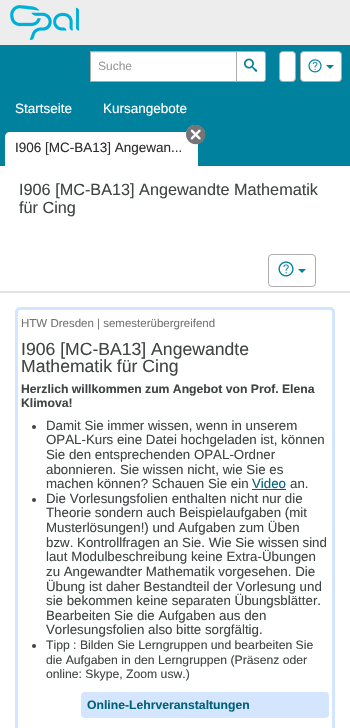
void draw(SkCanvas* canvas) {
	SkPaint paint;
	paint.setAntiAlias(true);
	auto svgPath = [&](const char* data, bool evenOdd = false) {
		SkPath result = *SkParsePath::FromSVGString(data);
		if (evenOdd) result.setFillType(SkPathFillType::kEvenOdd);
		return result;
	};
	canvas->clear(0xffffffff);
	paint.setColor(0xffededed);
	canvas->drawRect(SkRect::MakeXYWH(0, 0, 350, 45), paint);
	canvas->drawImageRect(SkImages::DeferredFromEncodedData(SkData::MakeFromFileName("img1.png")), SkRect::MakeXYWH(10, 5, 69, 35), SkSamplingOptions());
	paint.setColor(0xff00819d);
	canvas->drawRect(SkRect::MakeXYWH(0, 45, 350, 121), paint);
	paint.setColor(0xffffffff);
	canvas->drawRect(SkRect::MakeXYWH(91, 53, 145, 28), paint);
	paint.setColor(0xffececec);
	canvas->drawRect(SkRect::MakeXYWH(91, 52, 145, 1), paint);
	paint.setStroke(true);
	paint.setStrokeWidth(1);
	paint.setColor(0xffacacac);
	canvas->drawRect(SkRect::MakeXYWH(90.5, 51.5, 146, 30), paint);
	SkFont f1(fontMgr->matchFamilyStyle("Liberation Sans", SkFontStyle::Normal()), 12);
	f1.setSubpixel(true);
	paint.setStroke(false);
	paint.setColor(0xff999999);
	canvas->drawString("Suche", 98, 70, f1, paint);
	paint.setColor(0xffffffff);
	canvas->drawPath(svgPath("M236.5 51.5H263C264.5 51.5 265.5 52.5 265.5 54V79C265.5 80.5 264.5 81.5 263 81.5H236.5Z"), paint);
	paint.setStroke(true);
	paint.setColor(0xffacacac);
	canvas->drawPath(svgPath("M236.5 51.5H263C264.5 51.5 265.5 52.5 265.5 54V79C265.5 80.5 264.5 81.5 263 81.5H236.5Z"), paint);
	canvas->drawImageRect(SkImages::DeferredFromEncodedData(SkData::MakeFromFileName("img2.png")), SkRect::MakeXYWH(244, 58, 14, 14), SkSamplingOptions());
	paint.setStroke(false);
	paint.setColor(0xffffffff);
	canvas->drawRoundRect(SkRect::MakeXYWH(279.5, 51.5, 16, 30), 3.5, 3.5, paint);
	paint.setStroke(true);
	paint.setColor(0xffacacac);
	canvas->drawRoundRect(SkRect::MakeXYWH(279.5, 51.5, 16, 30), 3.5, 3.5, paint);
	paint.setStroke(false);
	paint.setColor(0xffffffff);
	canvas->drawRoundRect(SkRect::MakeXYWH(300.5, 51.5, 41, 30), 3.5, 3.5, paint);
	paint.setStroke(true);
	paint.setColor(0xffacacac);
	canvas->drawRoundRect(SkRect::MakeXYWH(300.5, 51.5, 41, 30), 3.5, 3.5, paint);
	canvas->drawImageRect(SkImages::DeferredFromEncodedData(SkData::MakeFromFileName("img3.png")), SkRect::MakeXYWH(308, 59, 14, 14), SkSamplingOptions());
	paint.setStroke(false);
	paint.setColor(0xff00819d);
	canvas->drawPath(svgPath("M326 65H334L330 69Z"), paint);
	SkFont f2(fontMgr->matchFamilyStyle("Liberation Sans", SkFontStyle::Normal()), 13.5);
	f2.setSubpixel(true);
	paint.setColor(0xffffffff);
	canvas->drawString("Startseite", 15, 113, f2, paint);
	canvas->drawString("Kursangebote", 103, 113, f2, paint);
	canvas->drawPath(svgPath("M10 132H198V166H5V137C5 134 7 132 10 132Z"), paint);
	canvas->drawCircle(195.5, 134.5, 9.5, paint);
	canvas->drawImageRect(SkImages::DeferredFromEncodedData(SkData::MakeFromFileName("img4.png")), SkRect::MakeXYWH(186, 124, 20, 21), SkSamplingOptions());
	paint.setColor(0xff2e2e2e);
	canvas->drawString("I906 [MC-BA13] Angewan...", 15, 152, f2, paint);
	paint.setColor(0xffe3e3e3);
	canvas->drawRect(SkRect::MakeXYWH(0, 291, 350, 2), paint);
	SkFont f3(fontMgr->matchFamilyStyle("Liberation Sans", SkFontStyle::Normal()), 16.25);
	f3.setSubpixel(true);
	paint.setColor(0xff3f4444);
	canvas->drawString("I906 [MC-BA13] Angewandte Mathematik", 19, 195, f3, paint);
	canvas->drawString("für Cing", 19, 213, f3, paint);
	paint.setStroke(true);
	paint.setColor(0xffacacac);
	canvas->drawRoundRect(SkRect::MakeXYWH(268.5, 254.5, 47, 32), 3.5, 3.5, paint);
	canvas->drawImageRect(SkImages::DeferredFromEncodedData(SkData::MakeFromFileName("img5.png")), SkRect::MakeXYWH(278, 261, 16, 16), SkSamplingOptions());
	paint.setStroke(false);
	paint.setColor(0xff00819d);
	canvas->drawPath(svgPath("M298 269H306L302 273Z"), paint);
	paint.setStroke(true);
	paint.setStrokeWidth(3);
	paint.setColor(0xffd4e5ff);
	canvas->drawRoundRect(SkRect::MakeXYWH(16.5, 308.5, 317, 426), 3.5, 3.5, paint);
	SkFont f4(fontMgr->matchFamilyStyle("Liberation Sans", SkFontStyle::Normal()), 11.5);
	f4.setSubpixel(true);
	paint.setStroke(false);
	paint.setColor(0xff757575);
	canvas->drawString("HTW Dresden | semesterübergreifend", 21, 327, f4, paint);
	SkFont f5(fontMgr->matchFamilyStyle("Liberation Sans", SkFontStyle::Normal()), 17.6);
	f5.setSubpixel(true);
	paint.setColor(0xff3f4444);
	canvas->drawString("I906 [MC-BA13] Angewandte", 21, 355, f5, paint);
	canvas->drawString("Mathematik für Cing", 21, 372, f5, paint);
	SkFont f6(fontMgr->matchFamilyStyle("Liberation Sans", SkFontStyle::Bold()), 12.2);
	f6.setSubpixel(true);
	canvas->drawString("Herzlich willkommen zum Angebot von Prof. Elena", 21, 393, f6, paint);
	canvas->drawString("Klimova!", 21, 407, f6, paint);
	canvas->drawCircle(34, 427, 2, paint);
	SkFont f7(fontMgr->matchFamilyStyle("Liberation Sans", SkFontStyle::Normal()), 13.3);
	f7.setSubpixel(true);
	canvas->drawString("Damit Sie immer wissen, wenn in unserem", 46, 430, f7, paint);
	canvas->drawString("OPAL-Kurs eine Datei hochgeladen ist, können", 46, 444, f7, paint);
	canvas->drawString("Sie den entsprechenden OPAL-Ordner", 46, 459, f7, paint);
	canvas->drawString("abonnieren. Sie wissen nicht, wie Sie es", 46, 474, f7, paint);
	canvas->drawString("machen können? Schauen Sie ein", 46, 488, f7, paint);
	paint.setColor(0xff006277);
	canvas->drawString("Video", 252, 488, f7, paint);
	canvas->drawRect(SkRect::MakeXYWH(252, 489, 34, 1), paint);
	paint.setColor(0xff3f4444);
	canvas->drawString("an.", 290, 488, f7, paint);
	canvas->drawCircle(34, 500, 2, paint);
	canvas->drawString("Die Vorlesungsfolien enthalten nicht nur die", 46, 503, f7, paint);
	canvas->drawString("Theorie sondern auch Beispielaufgaben (mit", 46, 517, f7, paint);
	canvas->drawString("Musterlösungen!) und Aufgaben zum Üben", 46, 532, f7, paint);
	canvas->drawString("bzw. Kontrollfragen an Sie. Wie Sie wissen sind", 46, 547, f7, paint);
	canvas->drawString("laut Modulbeschreibung keine Extra-Übungen", 46, 561, f7, paint);
	canvas->drawString("zu Angewandter Mathematik vorgesehen. Die", 46, 576, f7, paint);
	canvas->drawString("Übung ist daher Bestandteil der Vorlesung und", 46, 591, f7, paint);
	canvas->drawString("sie bekommen keine separaten Übungsblätter.", 46, 605, f7, paint);
	canvas->drawString("Bearbeiten Sie die Aufgaben aus den", 46, 620, f7, paint);
	canvas->drawString("Vorlesungsfolien also bitte sorgfältig.", 46, 634, f7, paint);
	canvas->drawCircle(34, 646, 2, paint);
	SkFont f8(fontMgr->matchFamilyStyle("Liberation Sans", SkFontStyle::Normal()), 12.2);
	f8.setSubpixel(true);
	canvas->drawString("Tipp : Bilden Sie Lerngruppen und bearbeiten Sie", 46, 649, f8, paint);
	canvas->drawString("die Aufgaben in den Lerngruppen (Präsenz oder", 46, 664, f8, paint);
	canvas->drawString("online: Skype, Zoom usw.)", 46, 678, f8, paint);
	paint.setColor(0xffd4e5ff);
	canvas->drawRoundRect(SkRect::MakeXYWH(81, 692, 248, 26), 4, 4, paint);
	paint.setColor(0xff006277);
	canvas->drawString("Online-Lehrveranstaltungen", 87, 709, f6, paint);
}
